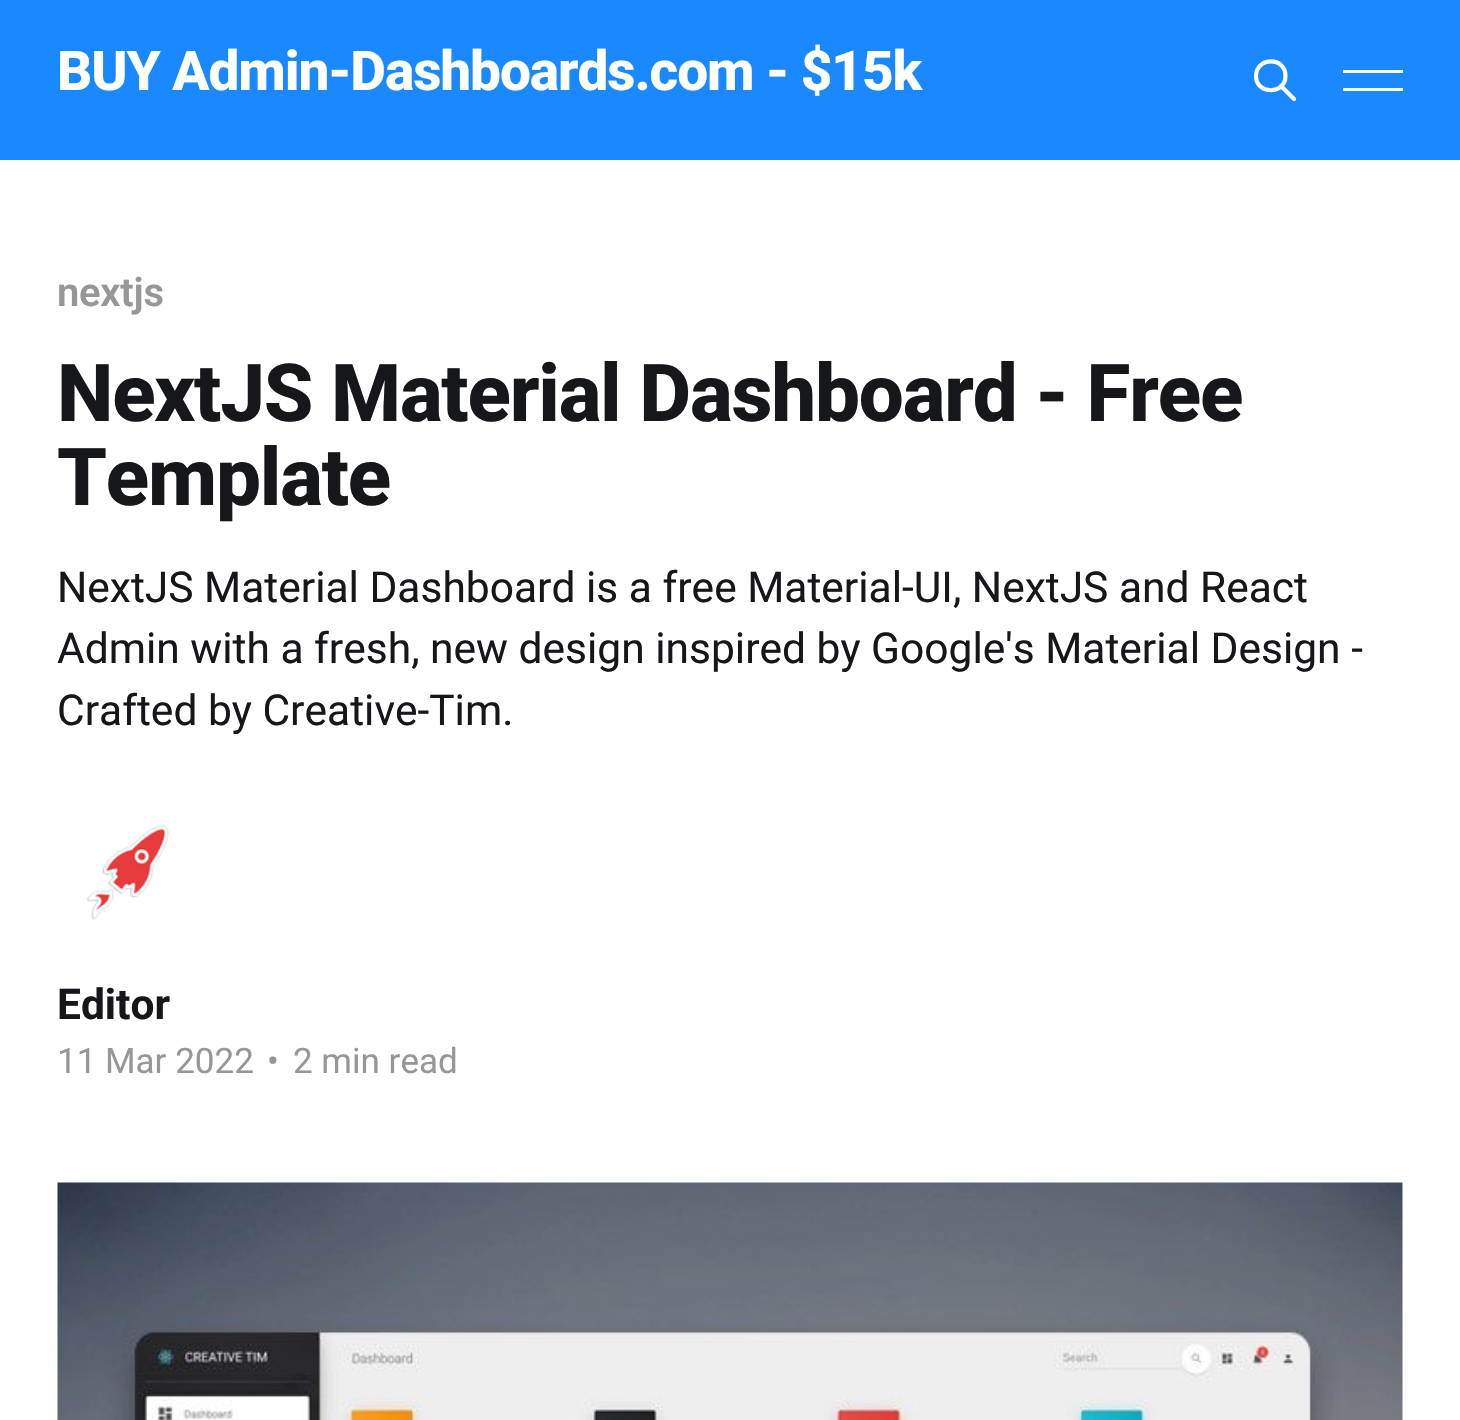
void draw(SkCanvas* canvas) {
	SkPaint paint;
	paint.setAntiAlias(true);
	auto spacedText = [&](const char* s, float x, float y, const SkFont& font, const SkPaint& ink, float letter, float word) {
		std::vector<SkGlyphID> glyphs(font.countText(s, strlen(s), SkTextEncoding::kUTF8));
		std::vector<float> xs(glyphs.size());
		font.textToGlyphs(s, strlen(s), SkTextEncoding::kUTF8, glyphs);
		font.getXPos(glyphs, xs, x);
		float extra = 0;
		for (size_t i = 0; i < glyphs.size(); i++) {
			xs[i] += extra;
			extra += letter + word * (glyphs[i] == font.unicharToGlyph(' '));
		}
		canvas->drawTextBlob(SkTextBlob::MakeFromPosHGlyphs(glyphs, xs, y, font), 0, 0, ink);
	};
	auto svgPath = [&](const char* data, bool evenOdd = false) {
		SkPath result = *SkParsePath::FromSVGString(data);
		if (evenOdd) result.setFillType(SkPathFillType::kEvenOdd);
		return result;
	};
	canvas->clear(0xffffffff);
	paint.setColor(0xff1a88ff);
	canvas->drawRect(SkRect::MakeXYWH(0, 0, 1460, 160), paint);
	SkFont f1(fontMgr->matchFamilyStyle("Roboto", SkFontStyle(800, SkFontStyle::kNormal_Width, SkFontStyle::kUpright_Slant)), 55);
	f1.setSubpixel(true);
	paint.setColor(0xffffffff);
	spacedText("BUY Admin-Dashboards.com - $15k", 57, 90, f1, paint, -1.1, 0);
	paint.setStroke(true);
	paint.setStrokeWidth(4.2);
	paint.setStrokeCap(SkPaint::kRound_Cap);
	paint.setStrokeJoin(SkPaint::kRound_Join);
	canvas->drawPath(svgPath("M1294 99L1281 86M1285.5 76C1285.5 95 1256 95 1256 76C1256.5 56.5 1285.5 56.5 1285.5 76Z"), paint);
	paint.setStroke(false);
	canvas->drawRect(SkRect::MakeXYWH(1343, 70, 60, 3), paint);
	canvas->drawRect(SkRect::MakeXYWH(1343, 88, 60, 3), paint);
	SkFont f2(fontMgr->matchFamilyStyle("Roboto", SkFontStyle(600, SkFontStyle::kNormal_Width, SkFontStyle::kUpright_Slant)), 40);
	f2.setSubpixel(true);
	paint.setColor(0xff979797);
	spacedText("nextjs", 57, 306, f2, paint, -0.25, 0);
	SkFont f3(fontMgr->matchFamilyStyle("Roboto", SkFontStyle(800, SkFontStyle::kNormal_Width, SkFontStyle::kUpright_Slant)), 80);
	f3.setSubpixel(true);
	paint.setColor(0xff15171a);
	spacedText("NextJS Material Dashboard - Free", 57, 421, f3, paint, -1.2, 0);
	spacedText("Template", 57, 505, f3, paint, -1.2, 0);
	SkFont f4(fontMgr->matchFamilyStyle("Roboto", SkFontStyle::Normal()), 42.5);
	f4.setSubpixel(true);
	canvas->drawString("NextJS Material Dashboard is a free Material-UI, NextJS and React", 57, 602, f4, paint);
	canvas->drawString("Admin with a fresh, new design inspired by Google's Material Design -", 57, 663, f4, paint);
	canvas->drawString("Crafted by Creative-Tim.", 57, 725, f4, paint);
	canvas->drawImageRect(SkImages::DeferredFromEncodedData(SkData::MakeFromFileName("img1.png")), SkRect::MakeXYWH(87, 825, 83, 95), SkSamplingOptions());
	SkFont f5(fontMgr->matchFamilyStyle("Roboto", SkFontStyle::Bold()), 42.5);
	f5.setSubpixel(true);
	canvas->drawString("Editor", 57, 1019, f5, paint);
	SkFont f6(fontMgr->matchFamilyStyle("Roboto", SkFontStyle::Normal()), 35);
	f6.setSubpixel(true);
	paint.setColor(0xff979797);
	canvas->drawString("11 Mar 2022", 57, 1073, f6, paint);
	canvas->drawString("•", 267, 1073, f6, paint);
	canvas->drawString("2 min read", 293, 1073, f6, paint);
	canvas->drawImageRect(SkImages::DeferredFromEncodedData(SkData::MakeFromFileName("img2.png")), SkRect::MakeXYWH(57, 1182, 1346, 238), SkSamplingOptions());
}
